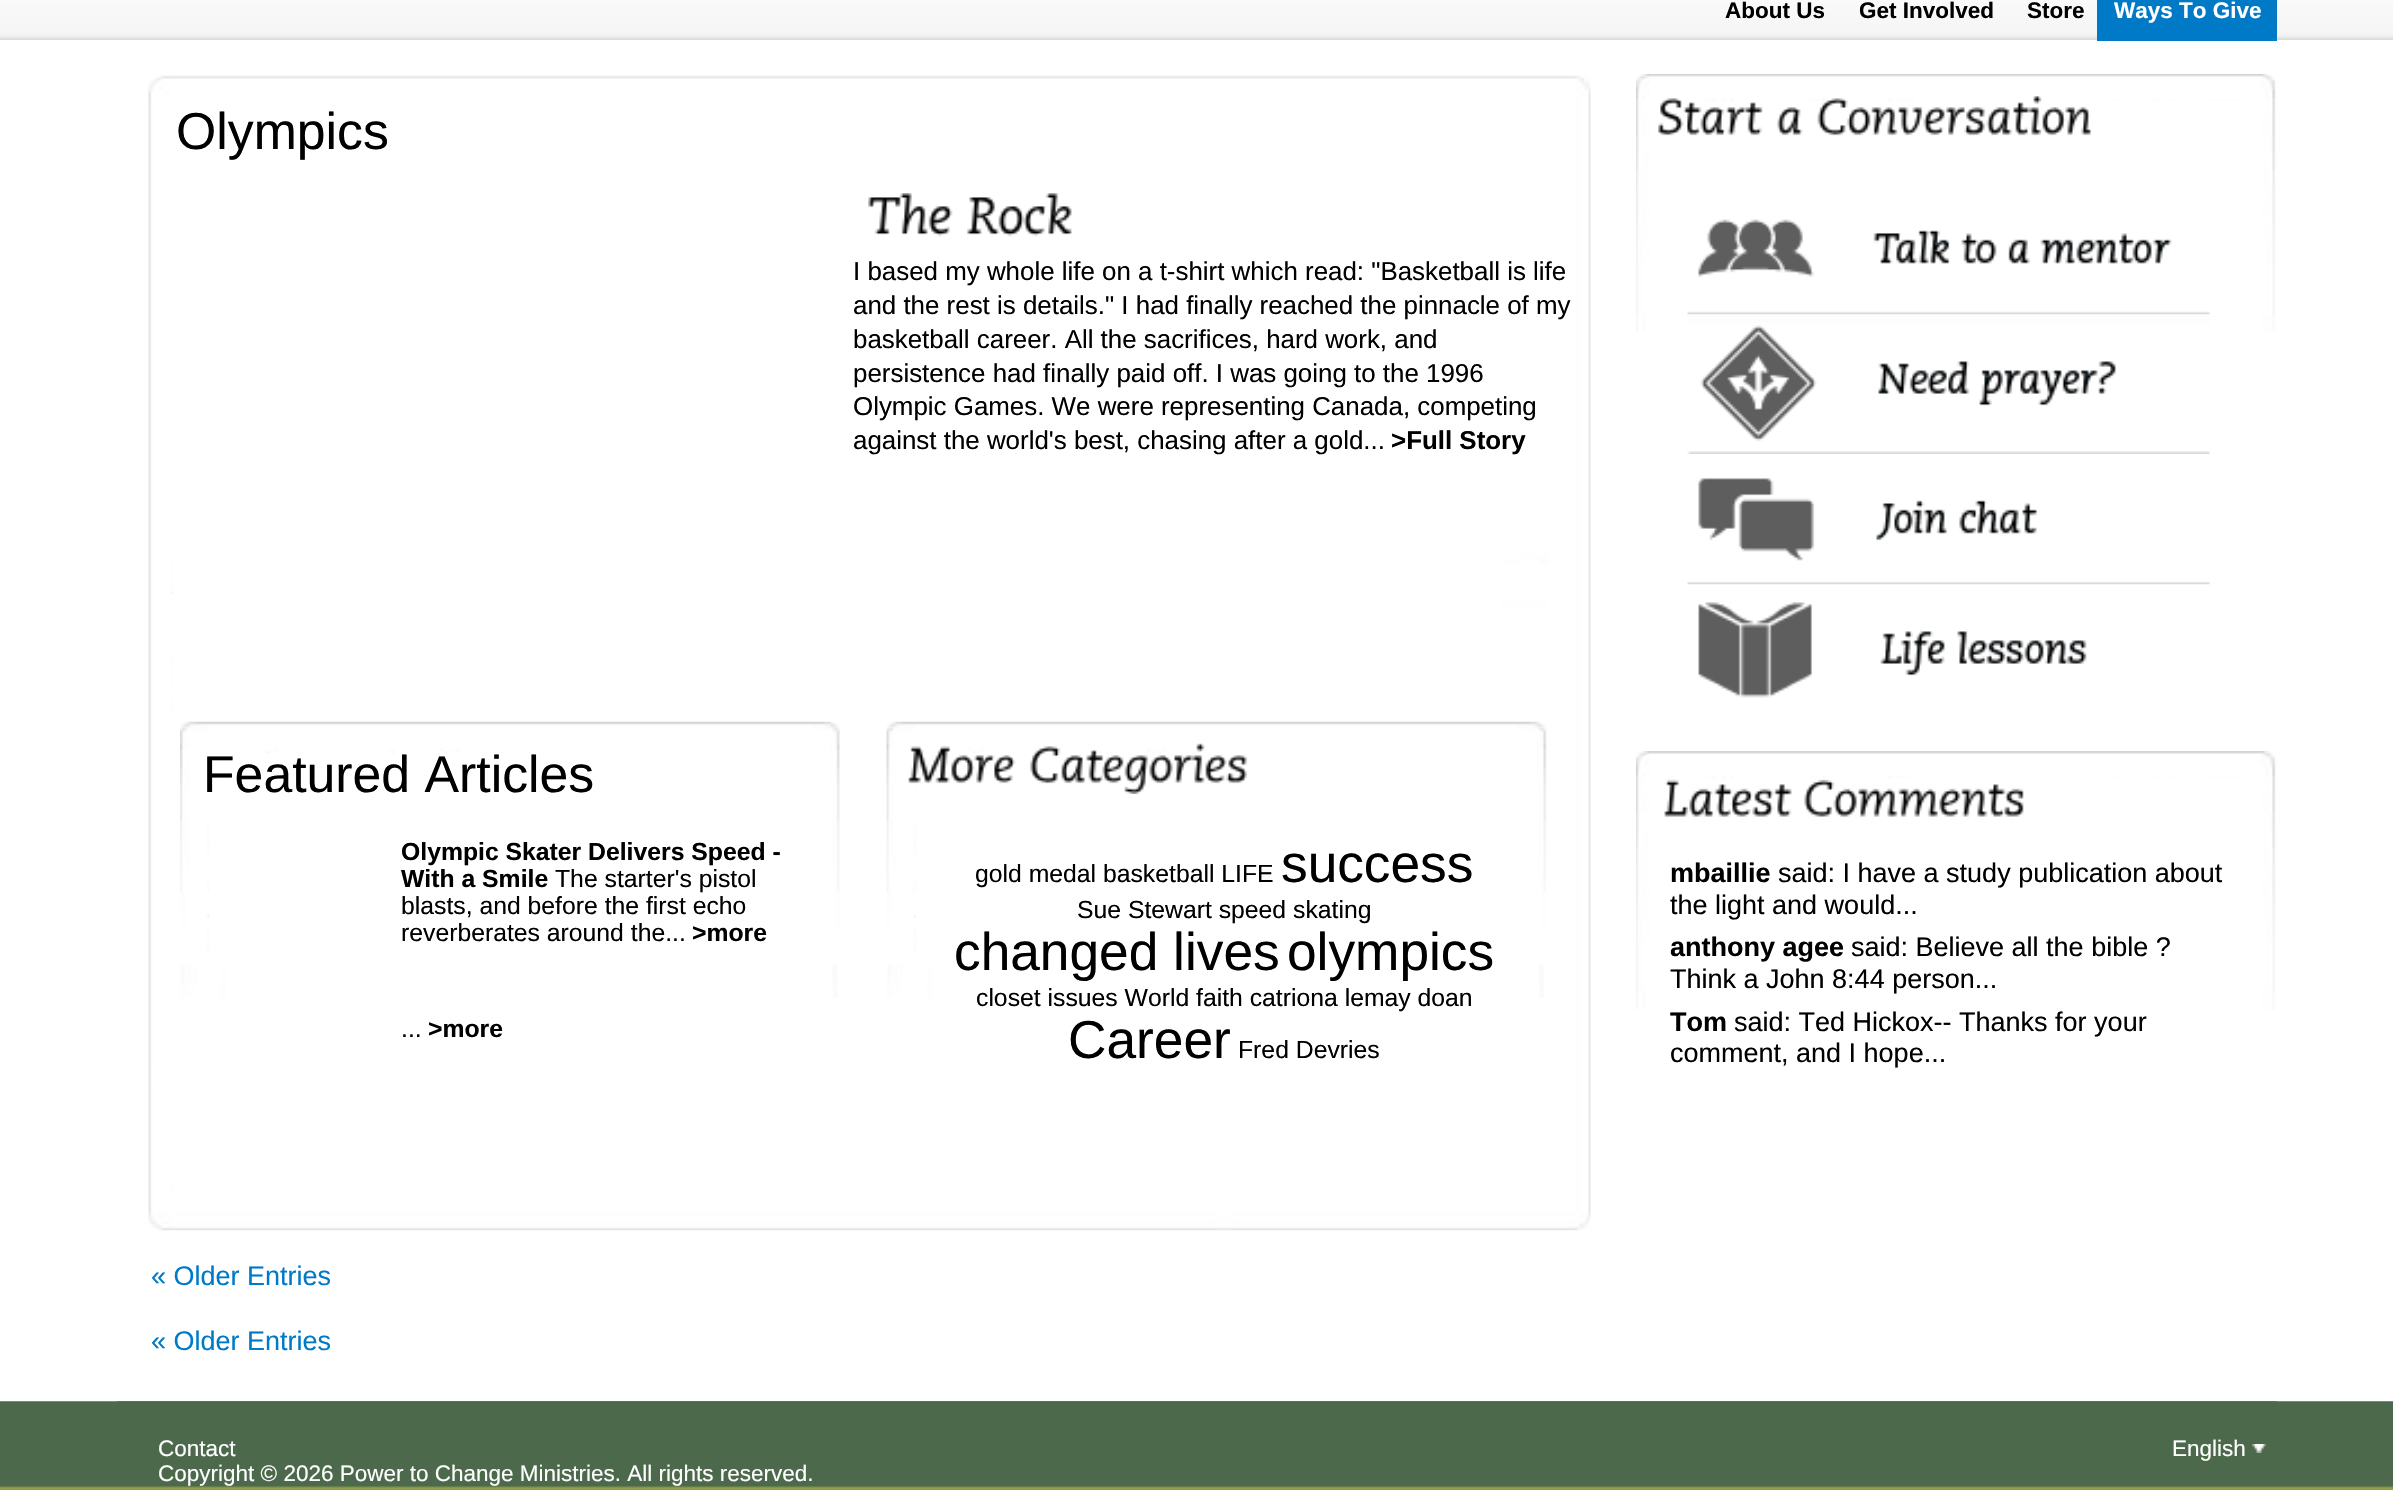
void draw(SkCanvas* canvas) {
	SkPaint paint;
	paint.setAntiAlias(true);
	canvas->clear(0xffffffff);
	canvas->drawImageRect(SkImages::DeferredFromEncodedData(SkData::MakeFromFileName("img1.png")), SkRect::MakeXYWH(0, 0, 2393, 40), SkSamplingOptions());
	SkFont f1(fontMgr->matchFamilyStyle("Liberation Sans", SkFontStyle::Bold()), 22.5);
	f1.setSubpixel(true);
	paint.setColor(0xff000000);
	canvas->drawString("About Us", 1725, 18, f1, paint);
	canvas->drawString("Get Involved", 1859, 18, f1, paint);
	canvas->drawString("Store", 2027, 18, f1, paint);
	paint.setColor(0xff007ac7);
	canvas->drawRect(SkRect::MakeXYWH(2097, 0, 180, 41), paint);
	paint.setColor(0xffffffff);
	canvas->drawString("Ways To Give", 2114, 18, f1, paint);
	canvas->drawImageRect(SkImages::DeferredFromEncodedData(SkData::MakeFromFileName("img2.png")), SkRect::MakeXYWH(148, 75, 1443, 1156), SkSamplingOptions());
	SkFont f2(fontMgr->matchFamilyStyle("Liberation Sans", SkFontStyle::Normal()), 51.75);
	f2.setSubpixel(true);
	paint.setColor(0xff000000);
	canvas->drawString("Olympics", 176, 149, f2, paint);
	canvas->drawImageRect(SkImages::DeferredFromEncodedData(SkData::MakeFromFileName("img3.png")), SkRect::MakeXYWH(868, 193, 85, 44), SkSamplingOptions());
	canvas->drawImageRect(SkImages::DeferredFromEncodedData(SkData::MakeFromFileName("img4.png")), SkRect::MakeXYWH(967, 193, 105, 44), SkSamplingOptions());
	SkFont f3(fontMgr->matchFamilyStyle("Liberation Sans", SkFontStyle::Normal()), 25.9);
	f3.setSubpixel(true);
	canvas->drawString("I based my whole life on a t-shirt which read: \"Basketball is life", 853, 280, f3, paint);
	canvas->drawString("and the rest is details.\" I had finally reached the pinnacle of my", 853, 314, f3, paint);
	canvas->drawString("basketball career. All the sacrifices, hard work, and", 853, 348, f3, paint);
	canvas->drawString("persistence had finally paid off. I was going to the 1996", 853, 382, f3, paint);
	canvas->drawString("Olympic Games. We were representing Canada, competing", 853, 415, f3, paint);
	canvas->drawString("against the world's best, chasing after a gold...", 853, 449, f3, paint);
	SkFont f4(fontMgr->matchFamilyStyle("Liberation Sans", SkFontStyle::Bold()), 25.9);
	f4.setSubpixel(true);
	canvas->drawString(">Full Story", 1391, 449, f4, paint);
	canvas->drawImageRect(SkImages::DeferredFromEncodedData(SkData::MakeFromFileName("img5.png")), SkRect::MakeXYWH(180, 721, 660, 277), SkSamplingOptions());
	canvas->drawString("Featured Articles", 203, 792, f2, paint);
	SkFont f5(fontMgr->matchFamilyStyle("Liberation Sans", SkFontStyle::Bold()), 24.75);
	f5.setSubpixel(true);
	canvas->drawString("Olympic Skater Delivers Speed -", 401, 860, f5, paint);
	canvas->drawString("With a Smile", 401, 887, f5, paint);
	SkFont f6(fontMgr->matchFamilyStyle("Liberation Sans", SkFontStyle::Normal()), 24.75);
	f6.setSubpixel(true);
	canvas->drawString("The starter's pistol", 555, 887, f6, paint);
	canvas->drawString("blasts, and before the first echo", 401, 914, f6, paint);
	canvas->drawString("reverberates around the...", 401, 941, f6, paint);
	canvas->drawString(">more", 692, 941, f5, paint);
	canvas->drawString("...", 401, 1037, f6, paint);
	canvas->drawString(">more", 428, 1037, f5, paint);
	canvas->drawImageRect(SkImages::DeferredFromEncodedData(SkData::MakeFromFileName("img6.png")), SkRect::MakeXYWH(886, 721, 661, 277), SkSamplingOptions());
	canvas->drawImageRect(SkImages::DeferredFromEncodedData(SkData::MakeFromFileName("img7.png")), SkRect::MakeXYWH(908, 746, 108, 38), SkSamplingOptions());
	canvas->drawImageRect(SkImages::DeferredFromEncodedData(SkData::MakeFromFileName("img8.png")), SkRect::MakeXYWH(1030, 743, 218, 51), SkSamplingOptions());
	canvas->drawString("gold medal basketball LIFE", 975, 882, f6, paint);
	SkFont f7(fontMgr->matchFamilyStyle("Liberation Sans", SkFontStyle::Normal()), 53.25);
	f7.setSubpixel(true);
	canvas->drawString("success", 1281, 882, f7, paint);
	canvas->drawString("Sue Stewart speed skating", 1077, 918, f6, paint);
	canvas->drawString("changed lives", 954, 970, f7, paint);
	canvas->drawString("olympics", 1287, 970, f7, paint);
	canvas->drawString("closet issues World faith catriona lemay doan", 976, 1006, f6, paint);
	canvas->drawString("Career", 1068, 1058, f7, paint);
	canvas->drawString("Fred Devries", 1238, 1058, f6, paint);
	SkFont f8(fontMgr->matchFamilyStyle("Liberation Sans", SkFontStyle::Normal()), 27);
	f8.setSubpixel(true);
	paint.setColor(0xff007ac7);
	canvas->drawString("« Older Entries", 151, 1285, f8, paint);
	canvas->drawString("« Older Entries", 151, 1350, f8, paint);
	canvas->drawImageRect(SkImages::DeferredFromEncodedData(SkData::MakeFromFileName("img9.png")), SkRect::MakeXYWH(1636, 74, 640, 258), SkSamplingOptions());
	canvas->drawImageRect(SkImages::DeferredFromEncodedData(SkData::MakeFromFileName("img10.png")), SkRect::MakeXYWH(1658, 98, 105, 38), SkSamplingOptions());
	canvas->drawImageRect(SkImages::DeferredFromEncodedData(SkData::MakeFromFileName("img11.png")), SkRect::MakeXYWH(1777, 107, 26, 29), SkSamplingOptions());
	canvas->drawImageRect(SkImages::DeferredFromEncodedData(SkData::MakeFromFileName("img12.png")), SkRect::MakeXYWH(1817, 96, 274, 40), SkSamplingOptions());
	canvas->drawImageRect(SkImages::DeferredFromEncodedData(SkData::MakeFromFileName("img13.png")), SkRect::MakeXYWH(1687, 219, 523, 96), SkSamplingOptions());
	canvas->drawImageRect(SkImages::DeferredFromEncodedData(SkData::MakeFromFileName("img14.png")), SkRect::MakeXYWH(1687, 314, 523, 140), SkSamplingOptions());
	canvas->drawImageRect(SkImages::DeferredFromEncodedData(SkData::MakeFromFileName("img15.png")), SkRect::MakeXYWH(1687, 478, 523, 107), SkSamplingOptions());
	canvas->drawImageRect(SkImages::DeferredFromEncodedData(SkData::MakeFromFileName("img16.png")), SkRect::MakeXYWH(1688, 584, 521, 114), SkSamplingOptions());
	canvas->drawImageRect(SkImages::DeferredFromEncodedData(SkData::MakeFromFileName("img17.png")), SkRect::MakeXYWH(1636, 751, 640, 259), SkSamplingOptions());
	canvas->drawImageRect(SkImages::DeferredFromEncodedData(SkData::MakeFromFileName("img18.png")), SkRect::MakeXYWH(1664, 779, 128, 38), SkSamplingOptions());
	canvas->drawImageRect(SkImages::DeferredFromEncodedData(SkData::MakeFromFileName("img19.png")), SkRect::MakeXYWH(1804, 779, 220, 38), SkSamplingOptions());
	SkFont f9(fontMgr->matchFamilyStyle("Liberation Sans", SkFontStyle::Bold()), 27);
	f9.setSubpixel(true);
	paint.setColor(0xff000000);
	canvas->drawString("mbaillie", 1670, 882, f9, paint);
	canvas->drawString("said: I have a study publication about", 1778, 882, f8, paint);
	canvas->drawString("the light and would...", 1670, 914, f8, paint);
	canvas->drawString("anthony agee", 1670, 956, f9, paint);
	canvas->drawString("said: Believe all the bible ?", 1851, 956, f8, paint);
	canvas->drawString("Think a John 8:44 person...", 1670, 988, f8, paint);
	canvas->save();
	canvas->clipRect(SkRect::MakeXYWH(1670, 1006, 562, 63));
	canvas->drawString("Tom", 1670, 1031, f9, paint);
	canvas->restore();
	canvas->drawString("said: Ted Hickox-- Thanks for your", 1734, 1031, f8, paint);
	canvas->drawString("comment, and I hope...", 1670, 1062, f8, paint);
	canvas->drawImageRect(SkImages::DeferredFromEncodedData(SkData::MakeFromFileName("img20.png")), SkRect::MakeXYWH(0, 1401, 2393, 89), SkSamplingOptions());
	paint.setColor(0xff587257);
	canvas->drawRect(SkRect::MakeXYWH(117, 1401, 2160, 1), paint);
	SkFont f10(fontMgr->matchFamilyStyle("Liberation Sans", SkFontStyle::Normal()), 22.5);
	f10.setSubpixel(true);
	paint.setColor(0xffffffff);
	canvas->drawString("Contact", 158, 1456, f10, paint);
	canvas->drawString("English", 2172, 1456, f10, paint);
	canvas->drawImageRect(SkImages::DeferredFromEncodedData(SkData::MakeFromFileName("img21.png")), SkRect::MakeXYWH(2252, 1444, 14, 9), SkSamplingOptions());
	canvas->drawString("Copyright © 2026 Power to Change Ministries. All rights reserved.", 158, 1481, f10, paint);
}
